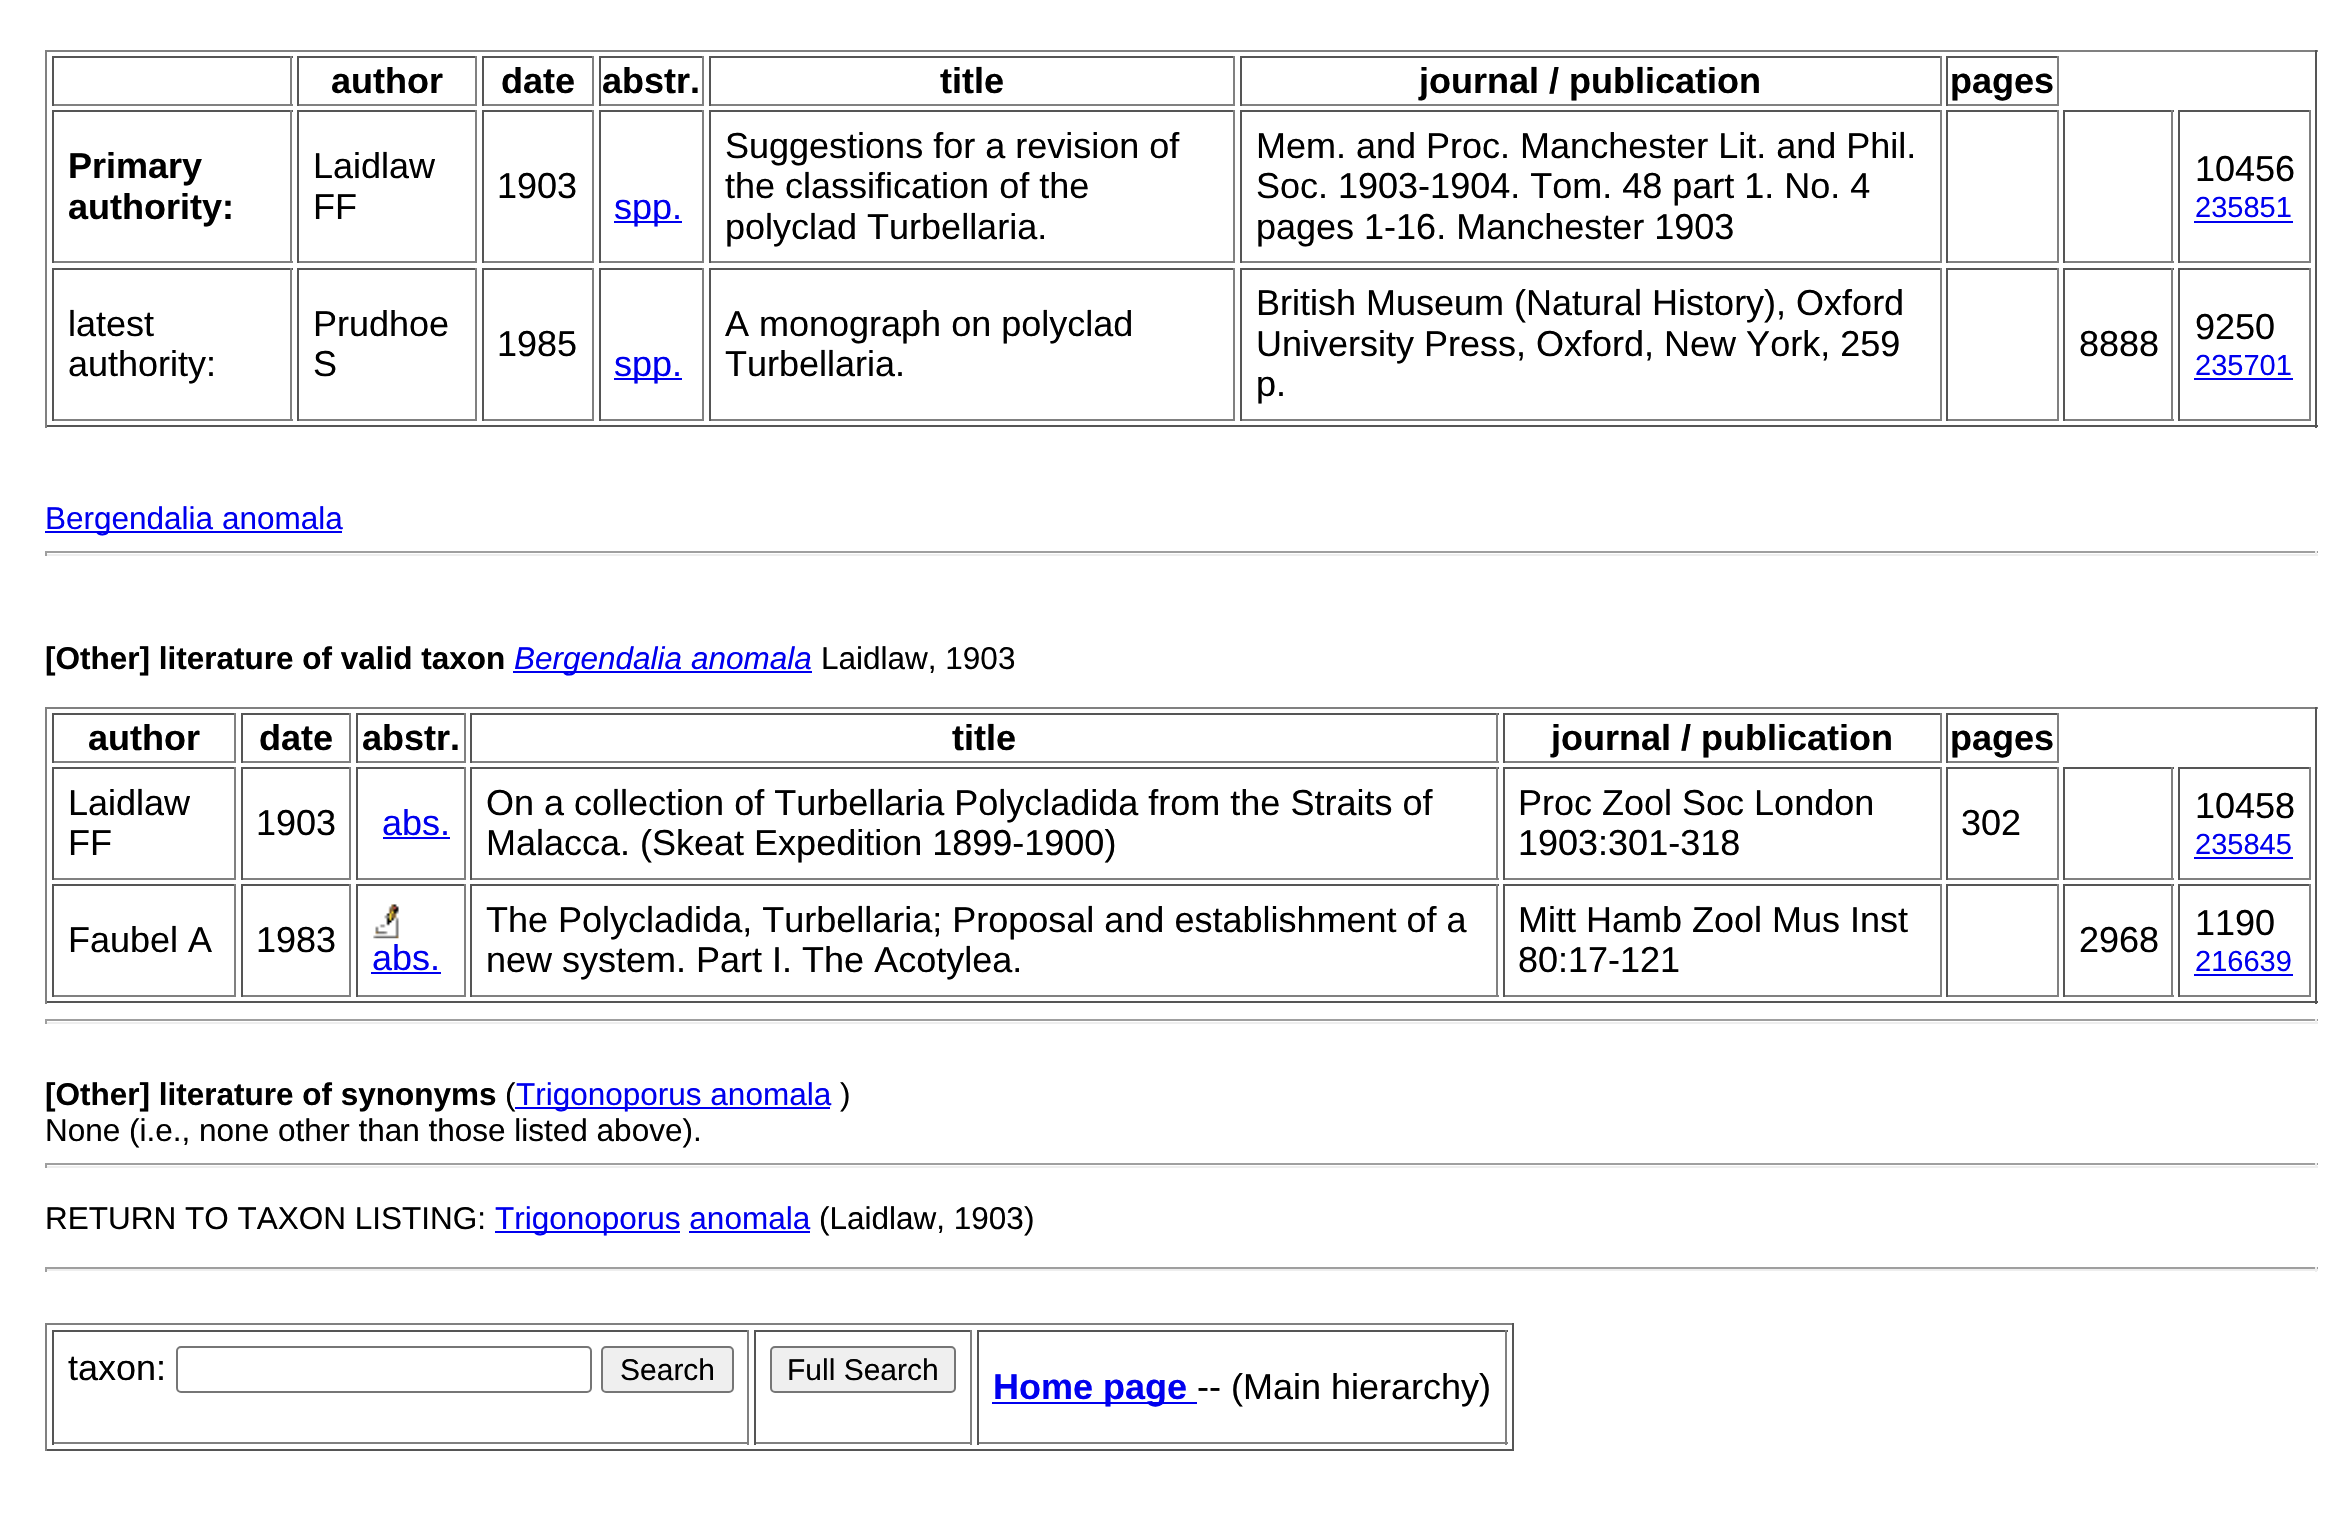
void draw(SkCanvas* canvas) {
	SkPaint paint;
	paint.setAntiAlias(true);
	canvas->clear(0xffffffff);
	paint.setColor(0xff808080);
	canvas->drawRect(SkRect::MakeXYWH(45, 50, 2273, 2), paint);
	paint.setColor(0xff555555);
	canvas->drawRect(SkRect::MakeXYWH(2315, 50, 2, 378), paint);
	canvas->drawRect(SkRect::MakeXYWH(45, 425, 2273, 2), paint);
	paint.setColor(0xff808080);
	canvas->drawRect(SkRect::MakeXYWH(45, 50, 2, 378), paint);
	paint.setColor(0xff555555);
	canvas->drawRect(SkRect::MakeXYWH(52, 56, 241, 2), paint);
	paint.setColor(0xff808080);
	canvas->drawRect(SkRect::MakeXYWH(290, 56, 2, 50), paint);
	canvas->drawRect(SkRect::MakeXYWH(52, 104, 241, 2), paint);
	paint.setColor(0xff555555);
	canvas->drawRect(SkRect::MakeXYWH(52, 56, 2, 50), paint);
	canvas->drawRect(SkRect::MakeXYWH(297, 56, 180, 2), paint);
	paint.setColor(0xff808080);
	canvas->drawRect(SkRect::MakeXYWH(475, 56, 2, 50), paint);
	canvas->drawRect(SkRect::MakeXYWH(297, 104, 180, 2), paint);
	paint.setColor(0xff555555);
	canvas->drawRect(SkRect::MakeXYWH(297, 56, 2, 50), paint);
	SkFont f1(fontMgr->matchFamilyStyle("Liberation Sans", SkFontStyle::Bold()), 36);
	f1.setSubpixel(true);
	paint.setColor(0xff000000);
	canvas->drawString("author", 331, 93, f1, paint);
	paint.setColor(0xff555555);
	canvas->drawRect(SkRect::MakeXYWH(482, 56, 112, 2), paint);
	paint.setColor(0xff808080);
	canvas->drawRect(SkRect::MakeXYWH(592, 56, 2, 50), paint);
	canvas->drawRect(SkRect::MakeXYWH(482, 104, 112, 2), paint);
	paint.setColor(0xff555555);
	canvas->drawRect(SkRect::MakeXYWH(482, 56, 2, 50), paint);
	paint.setColor(0xff000000);
	canvas->drawString("date", 501, 93, f1, paint);
	paint.setColor(0xff555555);
	canvas->drawRect(SkRect::MakeXYWH(599, 56, 105, 2), paint);
	paint.setColor(0xff808080);
	canvas->drawRect(SkRect::MakeXYWH(702, 56, 2, 50), paint);
	canvas->drawRect(SkRect::MakeXYWH(599, 104, 105, 2), paint);
	paint.setColor(0xff555555);
	canvas->drawRect(SkRect::MakeXYWH(599, 56, 2, 50), paint);
	paint.setColor(0xff000000);
	canvas->drawString("abstr.", 602, 93, f1, paint);
	paint.setColor(0xff555555);
	canvas->drawRect(SkRect::MakeXYWH(709, 56, 526, 2), paint);
	paint.setColor(0xff808080);
	canvas->drawRect(SkRect::MakeXYWH(1233, 56, 2, 50), paint);
	canvas->drawRect(SkRect::MakeXYWH(709, 104, 526, 2), paint);
	paint.setColor(0xff555555);
	canvas->drawRect(SkRect::MakeXYWH(709, 56, 2, 50), paint);
	paint.setColor(0xff000000);
	canvas->drawString("title", 940, 93, f1, paint);
	paint.setColor(0xff555555);
	canvas->drawRect(SkRect::MakeXYWH(1240, 56, 702, 2), paint);
	paint.setColor(0xff808080);
	canvas->drawRect(SkRect::MakeXYWH(1940, 56, 2, 50), paint);
	canvas->drawRect(SkRect::MakeXYWH(1240, 104, 702, 2), paint);
	paint.setColor(0xff555555);
	canvas->drawRect(SkRect::MakeXYWH(1240, 56, 2, 50), paint);
	paint.setColor(0xff000000);
	canvas->drawString("journal / publication", 1419, 93, f1, paint);
	paint.setColor(0xff555555);
	canvas->drawRect(SkRect::MakeXYWH(1946, 56, 113, 2), paint);
	paint.setColor(0xff808080);
	canvas->drawRect(SkRect::MakeXYWH(2057, 56, 2, 50), paint);
	canvas->drawRect(SkRect::MakeXYWH(1946, 104, 113, 2), paint);
	paint.setColor(0xff555555);
	canvas->drawRect(SkRect::MakeXYWH(1946, 56, 2, 50), paint);
	paint.setColor(0xff000000);
	canvas->drawString("pages", 1950, 93, f1, paint);
	paint.setColor(0xff555555);
	canvas->drawRect(SkRect::MakeXYWH(52, 110, 241, 2), paint);
	paint.setColor(0xff808080);
	canvas->drawRect(SkRect::MakeXYWH(290, 110, 2, 153), paint);
	canvas->drawRect(SkRect::MakeXYWH(52, 261, 241, 2), paint);
	paint.setColor(0xff555555);
	canvas->drawRect(SkRect::MakeXYWH(52, 110, 2, 153), paint);
	paint.setColor(0xff000000);
	canvas->drawString("Primary", 68, 178, f1, paint);
	canvas->drawString("authority:", 68, 219, f1, paint);
	paint.setColor(0xff555555);
	canvas->drawRect(SkRect::MakeXYWH(297, 110, 180, 2), paint);
	paint.setColor(0xff808080);
	canvas->drawRect(SkRect::MakeXYWH(475, 110, 2, 153), paint);
	canvas->drawRect(SkRect::MakeXYWH(297, 261, 180, 2), paint);
	paint.setColor(0xff555555);
	canvas->drawRect(SkRect::MakeXYWH(297, 110, 2, 153), paint);
	SkFont f2(fontMgr->matchFamilyStyle("Liberation Sans", SkFontStyle::Normal()), 36);
	f2.setSubpixel(true);
	paint.setColor(0xff000000);
	canvas->drawString("Laidlaw", 313, 178, f2, paint);
	canvas->drawString("FF", 313, 219, f2, paint);
	paint.setColor(0xff555555);
	canvas->drawRect(SkRect::MakeXYWH(482, 110, 112, 2), paint);
	paint.setColor(0xff808080);
	canvas->drawRect(SkRect::MakeXYWH(592, 110, 2, 153), paint);
	canvas->drawRect(SkRect::MakeXYWH(482, 261, 112, 2), paint);
	paint.setColor(0xff555555);
	canvas->drawRect(SkRect::MakeXYWH(482, 110, 2, 153), paint);
	paint.setColor(0xff000000);
	canvas->drawString("1903", 497, 198, f2, paint);
	paint.setColor(0xff555555);
	canvas->drawRect(SkRect::MakeXYWH(709, 110, 526, 2), paint);
	paint.setColor(0xff808080);
	canvas->drawRect(SkRect::MakeXYWH(1233, 110, 2, 153), paint);
	canvas->drawRect(SkRect::MakeXYWH(709, 261, 526, 2), paint);
	paint.setColor(0xff555555);
	canvas->drawRect(SkRect::MakeXYWH(709, 110, 2, 153), paint);
	paint.setColor(0xff000000);
	canvas->drawString("Suggestions for a revision of", 725, 158, f2, paint);
	canvas->drawString("the classification of the", 725, 198, f2, paint);
	canvas->drawString("polyclad Turbellaria.", 725, 239, f2, paint);
	paint.setColor(0xff555555);
	canvas->drawRect(SkRect::MakeXYWH(1240, 110, 702, 2), paint);
	paint.setColor(0xff808080);
	canvas->drawRect(SkRect::MakeXYWH(1940, 110, 2, 153), paint);
	canvas->drawRect(SkRect::MakeXYWH(1240, 261, 702, 2), paint);
	paint.setColor(0xff555555);
	canvas->drawRect(SkRect::MakeXYWH(1240, 110, 2, 153), paint);
	paint.setColor(0xff000000);
	canvas->drawString("Mem. and Proc. Manchester Lit. and Phil.", 1256, 158, f2, paint);
	canvas->drawString("Soc. 1903-1904. Tom. 48 part 1. No. 4", 1256, 198, f2, paint);
	canvas->drawString("pages 1-16. Manchester 1903", 1256, 239, f2, paint);
	paint.setColor(0xff555555);
	canvas->drawRect(SkRect::MakeXYWH(1946, 110, 113, 2), paint);
	paint.setColor(0xff808080);
	canvas->drawRect(SkRect::MakeXYWH(2057, 110, 2, 153), paint);
	canvas->drawRect(SkRect::MakeXYWH(1946, 261, 113, 2), paint);
	paint.setColor(0xff555555);
	canvas->drawRect(SkRect::MakeXYWH(1946, 110, 2, 153), paint);
	canvas->drawRect(SkRect::MakeXYWH(2063, 110, 111, 2), paint);
	paint.setColor(0xff808080);
	canvas->drawRect(SkRect::MakeXYWH(2171, 110, 2, 153), paint);
	canvas->drawRect(SkRect::MakeXYWH(2063, 261, 111, 2), paint);
	paint.setColor(0xff555555);
	canvas->drawRect(SkRect::MakeXYWH(2063, 110, 2, 153), paint);
	canvas->drawRect(SkRect::MakeXYWH(2178, 110, 133, 2), paint);
	paint.setColor(0xff808080);
	canvas->drawRect(SkRect::MakeXYWH(2309, 110, 2, 153), paint);
	canvas->drawRect(SkRect::MakeXYWH(2178, 261, 133, 2), paint);
	paint.setColor(0xff555555);
	canvas->drawRect(SkRect::MakeXYWH(2178, 110, 2, 153), paint);
	paint.setColor(0xff000000);
	canvas->drawString("10456", 2195, 181, f2, paint);
	SkFont f3(fontMgr->matchFamilyStyle("Liberation Sans", SkFontStyle::Normal()), 29);
	f3.setSubpixel(true);
	paint.setColor(0xff0000ee);
	canvas->drawString("235851", 2195, 217, f3, paint);
	canvas->drawRect(SkRect::MakeXYWH(2194, 221, 99, 2), paint);
	paint.setColor(0xff555555);
	canvas->drawRect(SkRect::MakeXYWH(599, 110, 105, 2), paint);
	paint.setColor(0xff808080);
	canvas->drawRect(SkRect::MakeXYWH(702, 110, 2, 153), paint);
	canvas->drawRect(SkRect::MakeXYWH(599, 261, 105, 2), paint);
	paint.setColor(0xff555555);
	canvas->drawRect(SkRect::MakeXYWH(599, 110, 2, 153), paint);
	paint.setColor(0xff0000ee);
	canvas->drawRect(SkRect::MakeXYWH(614, 221, 68, 2), paint);
	canvas->drawString("spp.", 614, 219, f2, paint);
	paint.setColor(0xff555555);
	canvas->drawRect(SkRect::MakeXYWH(52, 268, 241, 2), paint);
	paint.setColor(0xff808080);
	canvas->drawRect(SkRect::MakeXYWH(290, 268, 2, 153), paint);
	canvas->drawRect(SkRect::MakeXYWH(52, 419, 241, 2), paint);
	paint.setColor(0xff555555);
	canvas->drawRect(SkRect::MakeXYWH(52, 268, 2, 153), paint);
	paint.setColor(0xff000000);
	canvas->drawString("latest", 68, 336, f2, paint);
	canvas->drawString("authority:", 68, 376, f2, paint);
	paint.setColor(0xff555555);
	canvas->drawRect(SkRect::MakeXYWH(297, 268, 180, 2), paint);
	paint.setColor(0xff808080);
	canvas->drawRect(SkRect::MakeXYWH(475, 268, 2, 153), paint);
	canvas->drawRect(SkRect::MakeXYWH(297, 419, 180, 2), paint);
	paint.setColor(0xff555555);
	canvas->drawRect(SkRect::MakeXYWH(297, 268, 2, 153), paint);
	paint.setColor(0xff000000);
	canvas->drawString("Prudhoe", 313, 336, f2, paint);
	canvas->drawString("S", 313, 376, f2, paint);
	paint.setColor(0xff555555);
	canvas->drawRect(SkRect::MakeXYWH(482, 268, 112, 2), paint);
	paint.setColor(0xff808080);
	canvas->drawRect(SkRect::MakeXYWH(592, 268, 2, 153), paint);
	canvas->drawRect(SkRect::MakeXYWH(482, 419, 112, 2), paint);
	paint.setColor(0xff555555);
	canvas->drawRect(SkRect::MakeXYWH(482, 268, 2, 153), paint);
	paint.setColor(0xff000000);
	canvas->drawString("1985", 497, 356, f2, paint);
	paint.setColor(0xff555555);
	canvas->drawRect(SkRect::MakeXYWH(709, 268, 526, 2), paint);
	paint.setColor(0xff808080);
	canvas->drawRect(SkRect::MakeXYWH(1233, 268, 2, 153), paint);
	canvas->drawRect(SkRect::MakeXYWH(709, 419, 526, 2), paint);
	paint.setColor(0xff555555);
	canvas->drawRect(SkRect::MakeXYWH(709, 268, 2, 153), paint);
	paint.setColor(0xff000000);
	canvas->drawString("A monograph on polyclad", 725, 336, f2, paint);
	canvas->drawString("Turbellaria.", 725, 376, f2, paint);
	paint.setColor(0xff555555);
	canvas->drawRect(SkRect::MakeXYWH(1240, 268, 702, 2), paint);
	paint.setColor(0xff808080);
	canvas->drawRect(SkRect::MakeXYWH(1940, 268, 2, 153), paint);
	canvas->drawRect(SkRect::MakeXYWH(1240, 419, 702, 2), paint);
	paint.setColor(0xff555555);
	canvas->drawRect(SkRect::MakeXYWH(1240, 268, 2, 153), paint);
	paint.setColor(0xff000000);
	canvas->drawString("British Museum (Natural History), Oxford", 1256, 315, f2, paint);
	canvas->drawString("University Press, Oxford, New York, 259", 1256, 356, f2, paint);
	canvas->drawString("p.", 1256, 396, f2, paint);
	paint.setColor(0xff555555);
	canvas->drawRect(SkRect::MakeXYWH(1946, 268, 113, 2), paint);
	paint.setColor(0xff808080);
	canvas->drawRect(SkRect::MakeXYWH(2057, 268, 2, 153), paint);
	canvas->drawRect(SkRect::MakeXYWH(1946, 419, 113, 2), paint);
	paint.setColor(0xff555555);
	canvas->drawRect(SkRect::MakeXYWH(1946, 268, 2, 153), paint);
	canvas->drawRect(SkRect::MakeXYWH(2063, 268, 111, 2), paint);
	paint.setColor(0xff808080);
	canvas->drawRect(SkRect::MakeXYWH(2171, 268, 2, 153), paint);
	canvas->drawRect(SkRect::MakeXYWH(2063, 419, 111, 2), paint);
	paint.setColor(0xff555555);
	canvas->drawRect(SkRect::MakeXYWH(2063, 268, 2, 153), paint);
	paint.setColor(0xff000000);
	canvas->drawString("8888", 2079, 356, f2, paint);
	paint.setColor(0xff555555);
	canvas->drawRect(SkRect::MakeXYWH(2178, 268, 133, 2), paint);
	paint.setColor(0xff808080);
	canvas->drawRect(SkRect::MakeXYWH(2309, 268, 2, 153), paint);
	canvas->drawRect(SkRect::MakeXYWH(2178, 419, 133, 2), paint);
	paint.setColor(0xff555555);
	canvas->drawRect(SkRect::MakeXYWH(2178, 268, 2, 153), paint);
	paint.setColor(0xff000000);
	canvas->drawString("9250", 2195, 339, f2, paint);
	paint.setColor(0xff0000ee);
	canvas->drawString("235701", 2195, 375, f3, paint);
	canvas->drawRect(SkRect::MakeXYWH(2194, 378, 99, 2), paint);
	paint.setColor(0xff555555);
	canvas->drawRect(SkRect::MakeXYWH(599, 268, 105, 2), paint);
	paint.setColor(0xff808080);
	canvas->drawRect(SkRect::MakeXYWH(702, 268, 2, 153), paint);
	canvas->drawRect(SkRect::MakeXYWH(599, 419, 105, 2), paint);
	paint.setColor(0xff555555);
	canvas->drawRect(SkRect::MakeXYWH(599, 268, 2, 153), paint);
	paint.setColor(0xff0000ee);
	canvas->drawRect(SkRect::MakeXYWH(614, 378, 68, 2), paint);
	canvas->drawString("spp.", 614, 376, f2, paint);
	canvas->drawRect(SkRect::MakeXYWH(45, 531, 297, 2), paint);
	SkFont f4(fontMgr->matchFamilyStyle("Liberation Sans", SkFontStyle::Normal()), 31.5);
	f4.setSubpixel(true);
	canvas->drawString("Bergendalia anomala", 45, 529, f4, paint);
	paint.setColor(0xff9f9f9f);
	canvas->drawRect(SkRect::MakeXYWH(45, 551, 2273, 2), paint);
	paint.setColor(0xffeeeeee);
	canvas->drawRect(SkRect::MakeXYWH(2315, 551, 2, 5), paint);
	canvas->drawRect(SkRect::MakeXYWH(45, 554, 2273, 2), paint);
	paint.setColor(0xff9f9f9f);
	canvas->drawRect(SkRect::MakeXYWH(45, 551, 2, 5), paint);
	SkFont f5(fontMgr->matchFamilyStyle("Liberation Sans", SkFontStyle::Bold()), 31.5);
	f5.setSubpixel(true);
	paint.setColor(0xff000000);
	canvas->drawString("[Other] literature of valid taxon", 45, 669, f5, paint);
	paint.setColor(0xff0000ee);
	canvas->drawRect(SkRect::MakeXYWH(513, 671, 299, 2), paint);
	SkFont f6(fontMgr->matchFamilyStyle("Liberation Sans", SkFontStyle::Italic()), 31.5);
	f6.setSubpixel(true);
	canvas->drawString("Bergendalia anomala", 514, 669, f6, paint);
	paint.setColor(0xff000000);
	canvas->drawString("Laidlaw, 1903", 821, 669, f4, paint);
	paint.setColor(0xff808080);
	canvas->drawRect(SkRect::MakeXYWH(45, 707, 2273, 2), paint);
	paint.setColor(0xff555555);
	canvas->drawRect(SkRect::MakeXYWH(2315, 707, 2, 297), paint);
	canvas->drawRect(SkRect::MakeXYWH(45, 1001, 2273, 2), paint);
	paint.setColor(0xff808080);
	canvas->drawRect(SkRect::MakeXYWH(45, 707, 2, 297), paint);
	paint.setColor(0xff555555);
	canvas->drawRect(SkRect::MakeXYWH(52, 713, 184, 2), paint);
	paint.setColor(0xff808080);
	canvas->drawRect(SkRect::MakeXYWH(234, 713, 2, 50), paint);
	canvas->drawRect(SkRect::MakeXYWH(52, 761, 184, 2), paint);
	paint.setColor(0xff555555);
	canvas->drawRect(SkRect::MakeXYWH(52, 713, 2, 50), paint);
	paint.setColor(0xff000000);
	canvas->drawString("author", 88, 750, f1, paint);
	paint.setColor(0xff555555);
	canvas->drawRect(SkRect::MakeXYWH(241, 713, 110, 2), paint);
	paint.setColor(0xff808080);
	canvas->drawRect(SkRect::MakeXYWH(349, 713, 2, 50), paint);
	canvas->drawRect(SkRect::MakeXYWH(241, 761, 110, 2), paint);
	paint.setColor(0xff555555);
	canvas->drawRect(SkRect::MakeXYWH(241, 713, 2, 50), paint);
	paint.setColor(0xff000000);
	canvas->drawString("date", 259, 750, f1, paint);
	paint.setColor(0xff555555);
	canvas->drawRect(SkRect::MakeXYWH(356, 713, 110, 2), paint);
	paint.setColor(0xff808080);
	canvas->drawRect(SkRect::MakeXYWH(464, 713, 2, 50), paint);
	canvas->drawRect(SkRect::MakeXYWH(356, 761, 110, 2), paint);
	paint.setColor(0xff555555);
	canvas->drawRect(SkRect::MakeXYWH(356, 713, 2, 50), paint);
	paint.setColor(0xff000000);
	canvas->drawString("abstr.", 362, 750, f1, paint);
	paint.setColor(0xff555555);
	canvas->drawRect(SkRect::MakeXYWH(470, 713, 1029, 2), paint);
	paint.setColor(0xff808080);
	canvas->drawRect(SkRect::MakeXYWH(1496, 713, 2, 50), paint);
	canvas->drawRect(SkRect::MakeXYWH(470, 761, 1029, 2), paint);
	paint.setColor(0xff555555);
	canvas->drawRect(SkRect::MakeXYWH(470, 713, 2, 50), paint);
	paint.setColor(0xff000000);
	canvas->drawString("title", 952, 750, f1, paint);
	paint.setColor(0xff555555);
	canvas->drawRect(SkRect::MakeXYWH(1503, 713, 439, 2), paint);
	paint.setColor(0xff808080);
	canvas->drawRect(SkRect::MakeXYWH(1940, 713, 2, 50), paint);
	canvas->drawRect(SkRect::MakeXYWH(1503, 761, 439, 2), paint);
	paint.setColor(0xff555555);
	canvas->drawRect(SkRect::MakeXYWH(1503, 713, 2, 50), paint);
	paint.setColor(0xff000000);
	canvas->drawString("journal / publication", 1551, 750, f1, paint);
	paint.setColor(0xff555555);
	canvas->drawRect(SkRect::MakeXYWH(1946, 713, 113, 2), paint);
	paint.setColor(0xff808080);
	canvas->drawRect(SkRect::MakeXYWH(2057, 713, 2, 50), paint);
	canvas->drawRect(SkRect::MakeXYWH(1946, 761, 113, 2), paint);
	paint.setColor(0xff555555);
	canvas->drawRect(SkRect::MakeXYWH(1946, 713, 2, 50), paint);
	paint.setColor(0xff000000);
	canvas->drawString("pages", 1950, 750, f1, paint);
	paint.setColor(0xff555555);
	canvas->drawRect(SkRect::MakeXYWH(52, 767, 184, 2), paint);
	paint.setColor(0xff808080);
	canvas->drawRect(SkRect::MakeXYWH(234, 767, 2, 113), paint);
	canvas->drawRect(SkRect::MakeXYWH(52, 878, 184, 2), paint);
	paint.setColor(0xff555555);
	canvas->drawRect(SkRect::MakeXYWH(52, 767, 2, 113), paint);
	paint.setColor(0xff000000);
	canvas->drawString("Laidlaw", 68, 815, f2, paint);
	canvas->drawString("FF", 68, 855, f2, paint);
	paint.setColor(0xff555555);
	canvas->drawRect(SkRect::MakeXYWH(241, 767, 110, 2), paint);
	paint.setColor(0xff808080);
	canvas->drawRect(SkRect::MakeXYWH(349, 767, 2, 113), paint);
	canvas->drawRect(SkRect::MakeXYWH(241, 878, 110, 2), paint);
	paint.setColor(0xff555555);
	canvas->drawRect(SkRect::MakeXYWH(241, 767, 2, 113), paint);
	paint.setColor(0xff000000);
	canvas->drawString("1903", 256, 835, f2, paint);
	paint.setColor(0xff555555);
	canvas->drawRect(SkRect::MakeXYWH(356, 767, 110, 2), paint);
	paint.setColor(0xff808080);
	canvas->drawRect(SkRect::MakeXYWH(464, 767, 2, 113), paint);
	canvas->drawRect(SkRect::MakeXYWH(356, 878, 110, 2), paint);
	paint.setColor(0xff555555);
	canvas->drawRect(SkRect::MakeXYWH(356, 767, 2, 113), paint);
	paint.setColor(0xff0000ee);
	canvas->drawString("abs.", 382, 835, f2, paint);
	canvas->drawRect(SkRect::MakeXYWH(383, 837, 67, 2), paint);
	paint.setColor(0xff555555);
	canvas->drawRect(SkRect::MakeXYWH(470, 767, 1029, 2), paint);
	paint.setColor(0xff808080);
	canvas->drawRect(SkRect::MakeXYWH(1496, 767, 2, 113), paint);
	canvas->drawRect(SkRect::MakeXYWH(470, 878, 1029, 2), paint);
	paint.setColor(0xff555555);
	canvas->drawRect(SkRect::MakeXYWH(470, 767, 2, 113), paint);
	paint.setColor(0xff000000);
	canvas->drawString("On a collection of Turbellaria Polycladida from the Straits of", 486, 815, f2, paint);
	canvas->drawString("Malacca. (Skeat Expedition 1899-1900)", 486, 855, f2, paint);
	paint.setColor(0xff555555);
	canvas->drawRect(SkRect::MakeXYWH(1503, 767, 439, 2), paint);
	paint.setColor(0xff808080);
	canvas->drawRect(SkRect::MakeXYWH(1940, 767, 2, 113), paint);
	canvas->drawRect(SkRect::MakeXYWH(1503, 878, 439, 2), paint);
	paint.setColor(0xff555555);
	canvas->drawRect(SkRect::MakeXYWH(1503, 767, 2, 113), paint);
	paint.setColor(0xff000000);
	canvas->drawString("Proc Zool Soc London", 1518, 815, f2, paint);
	canvas->drawString("1903:301-318", 1518, 855, f2, paint);
	paint.setColor(0xff555555);
	canvas->drawRect(SkRect::MakeXYWH(1946, 767, 113, 2), paint);
	paint.setColor(0xff808080);
	canvas->drawRect(SkRect::MakeXYWH(2057, 767, 2, 113), paint);
	canvas->drawRect(SkRect::MakeXYWH(1946, 878, 113, 2), paint);
	paint.setColor(0xff555555);
	canvas->drawRect(SkRect::MakeXYWH(1946, 767, 2, 113), paint);
	paint.setColor(0xff000000);
	canvas->drawString("302", 1961, 835, f2, paint);
	paint.setColor(0xff555555);
	canvas->drawRect(SkRect::MakeXYWH(2063, 767, 111, 2), paint);
	paint.setColor(0xff808080);
	canvas->drawRect(SkRect::MakeXYWH(2171, 767, 2, 113), paint);
	canvas->drawRect(SkRect::MakeXYWH(2063, 878, 111, 2), paint);
	paint.setColor(0xff555555);
	canvas->drawRect(SkRect::MakeXYWH(2063, 767, 2, 113), paint);
	canvas->drawRect(SkRect::MakeXYWH(2178, 767, 133, 2), paint);
	paint.setColor(0xff808080);
	canvas->drawRect(SkRect::MakeXYWH(2309, 767, 2, 113), paint);
	canvas->drawRect(SkRect::MakeXYWH(2178, 878, 133, 2), paint);
	paint.setColor(0xff555555);
	canvas->drawRect(SkRect::MakeXYWH(2178, 767, 2, 113), paint);
	paint.setColor(0xff000000);
	canvas->drawString("10458", 2195, 818, f2, paint);
	paint.setColor(0xff0000ee);
	canvas->drawString("235845", 2195, 854, f3, paint);
	canvas->drawRect(SkRect::MakeXYWH(2194, 857, 99, 2), paint);
	paint.setColor(0xff555555);
	canvas->drawRect(SkRect::MakeXYWH(52, 884, 184, 2), paint);
	paint.setColor(0xff808080);
	canvas->drawRect(SkRect::MakeXYWH(234, 884, 2, 113), paint);
	canvas->drawRect(SkRect::MakeXYWH(52, 995, 184, 2), paint);
	paint.setColor(0xff555555);
	canvas->drawRect(SkRect::MakeXYWH(52, 884, 2, 113), paint);
	paint.setColor(0xff000000);
	canvas->drawString("Faubel A", 68, 952, f2, paint);
	paint.setColor(0xff555555);
	canvas->drawRect(SkRect::MakeXYWH(241, 884, 110, 2), paint);
	paint.setColor(0xff808080);
	canvas->drawRect(SkRect::MakeXYWH(349, 884, 2, 113), paint);
	canvas->drawRect(SkRect::MakeXYWH(241, 995, 110, 2), paint);
	paint.setColor(0xff555555);
	canvas->drawRect(SkRect::MakeXYWH(241, 884, 2, 113), paint);
	paint.setColor(0xff000000);
	canvas->drawString("1983", 256, 952, f2, paint);
	paint.setColor(0xff555555);
	canvas->drawRect(SkRect::MakeXYWH(470, 884, 1029, 2), paint);
	paint.setColor(0xff808080);
	canvas->drawRect(SkRect::MakeXYWH(1496, 884, 2, 113), paint);
	canvas->drawRect(SkRect::MakeXYWH(470, 995, 1029, 2), paint);
	paint.setColor(0xff555555);
	canvas->drawRect(SkRect::MakeXYWH(470, 884, 2, 113), paint);
	paint.setColor(0xff000000);
	canvas->drawString("The Polycladida, Turbellaria; Proposal and establishment of a", 486, 932, f2, paint);
	canvas->drawString("new system. Part I. The Acotylea.", 486, 972, f2, paint);
	paint.setColor(0xff555555);
	canvas->drawRect(SkRect::MakeXYWH(1503, 884, 439, 2), paint);
	paint.setColor(0xff808080);
	canvas->drawRect(SkRect::MakeXYWH(1940, 884, 2, 113), paint);
	canvas->drawRect(SkRect::MakeXYWH(1503, 995, 439, 2), paint);
	paint.setColor(0xff555555);
	canvas->drawRect(SkRect::MakeXYWH(1503, 884, 2, 113), paint);
	paint.setColor(0xff000000);
	canvas->drawString("Mitt Hamb Zool Mus Inst", 1518, 932, f2, paint);
	canvas->drawString("80:17-121", 1518, 972, f2, paint);
	paint.setColor(0xff555555);
	canvas->drawRect(SkRect::MakeXYWH(1946, 884, 113, 2), paint);
	paint.setColor(0xff808080);
	canvas->drawRect(SkRect::MakeXYWH(2057, 884, 2, 113), paint);
	canvas->drawRect(SkRect::MakeXYWH(1946, 995, 113, 2), paint);
	paint.setColor(0xff555555);
	canvas->drawRect(SkRect::MakeXYWH(1946, 884, 2, 113), paint);
	canvas->drawRect(SkRect::MakeXYWH(2063, 884, 111, 2), paint);
	paint.setColor(0xff808080);
	canvas->drawRect(SkRect::MakeXYWH(2171, 884, 2, 113), paint);
	canvas->drawRect(SkRect::MakeXYWH(2063, 995, 111, 2), paint);
	paint.setColor(0xff555555);
	canvas->drawRect(SkRect::MakeXYWH(2063, 884, 2, 113), paint);
	paint.setColor(0xff000000);
	canvas->drawString("2968", 2079, 952, f2, paint);
	paint.setColor(0xff555555);
	canvas->drawRect(SkRect::MakeXYWH(2178, 884, 133, 2), paint);
	paint.setColor(0xff808080);
	canvas->drawRect(SkRect::MakeXYWH(2309, 884, 2, 113), paint);
	canvas->drawRect(SkRect::MakeXYWH(2178, 995, 133, 2), paint);
	paint.setColor(0xff555555);
	canvas->drawRect(SkRect::MakeXYWH(2178, 884, 2, 113), paint);
	paint.setColor(0xff000000);
	canvas->drawString("1190", 2195, 935, f2, paint);
	paint.setColor(0xff0000ee);
	canvas->drawString("216639", 2195, 971, f3, paint);
	canvas->drawRect(SkRect::MakeXYWH(2194, 974, 99, 2), paint);
	paint.setColor(0xff555555);
	canvas->drawRect(SkRect::MakeXYWH(356, 884, 110, 2), paint);
	paint.setColor(0xff808080);
	canvas->drawRect(SkRect::MakeXYWH(464, 884, 2, 113), paint);
	canvas->drawRect(SkRect::MakeXYWH(356, 995, 110, 2), paint);
	paint.setColor(0xff555555);
	canvas->drawRect(SkRect::MakeXYWH(356, 884, 2, 113), paint);
	canvas->drawImageRect(SkImages::DeferredFromEncodedData(SkData::MakeFromFileName("img1.png")), SkRect::MakeXYWH(373, 904, 26, 35), SkSamplingOptions());
	paint.setColor(0xff0000ee);
	canvas->drawString("abs.", 372, 970, f2, paint);
	canvas->drawRect(SkRect::MakeXYWH(371, 972, 70, 2), paint);
	paint.setColor(0xff9f9f9f);
	canvas->drawRect(SkRect::MakeXYWH(45, 1019, 2273, 2), paint);
	paint.setColor(0xffeeeeee);
	canvas->drawRect(SkRect::MakeXYWH(2315, 1019, 2, 5), paint);
	canvas->drawRect(SkRect::MakeXYWH(45, 1022, 2273, 2), paint);
	paint.setColor(0xff9f9f9f);
	canvas->drawRect(SkRect::MakeXYWH(45, 1019, 2, 5), paint);
	paint.setColor(0xff000000);
	canvas->drawString("[Other] literature of synonyms", 45, 1105, f5, paint);
	canvas->drawString("(", 505, 1105, f4, paint);
	paint.setColor(0xff0000ee);
	canvas->drawRect(SkRect::MakeXYWH(515, 1107, 315, 2), paint);
	canvas->drawString("Trigonoporus anomala", 516, 1105, f4, paint);
	paint.setColor(0xff000000);
	canvas->drawString(")", 840, 1105, f4, paint);
	canvas->drawString("None (i.e., none other than those listed above).", 45, 1141, f4, paint);
	paint.setColor(0xff9f9f9f);
	canvas->drawRect(SkRect::MakeXYWH(45, 1163, 2273, 2), paint);
	paint.setColor(0xffeeeeee);
	canvas->drawRect(SkRect::MakeXYWH(2315, 1163, 2, 5), paint);
	canvas->drawRect(SkRect::MakeXYWH(45, 1166, 2273, 2), paint);
	paint.setColor(0xff9f9f9f);
	canvas->drawRect(SkRect::MakeXYWH(45, 1163, 2, 5), paint);
	paint.setColor(0xff000000);
	canvas->drawString("RETURN TO TAXON LISTING:", 45, 1229, f4, paint);
	paint.setColor(0xff0000ee);
	canvas->drawRect(SkRect::MakeXYWH(495, 1231, 185, 2), paint);
	canvas->drawString("Trigonoporus anomala", 495, 1229, f4, paint);
	paint.setColor(0xff000000);
	canvas->drawString("(Laidlaw, 1903)", 819, 1229, f4, paint);
	paint.setColor(0xff0000ee);
	canvas->drawRect(SkRect::MakeXYWH(689, 1231, 121, 2), paint);
	paint.setColor(0xff9f9f9f);
	canvas->drawRect(SkRect::MakeXYWH(45, 1267, 2273, 2), paint);
	paint.setColor(0xffeeeeee);
	canvas->drawRect(SkRect::MakeXYWH(2315, 1267, 2, 5), paint);
	canvas->drawRect(SkRect::MakeXYWH(45, 1269, 2273, 2), paint);
	paint.setColor(0xff9f9f9f);
	canvas->drawRect(SkRect::MakeXYWH(45, 1267, 2, 5), paint);
	paint.setColor(0xff808080);
	canvas->drawRect(SkRect::MakeXYWH(45, 1323, 1469, 2), paint);
	paint.setColor(0xff555555);
	canvas->drawRect(SkRect::MakeXYWH(1512, 1323, 2, 128), paint);
	canvas->drawRect(SkRect::MakeXYWH(45, 1449, 1469, 2), paint);
	paint.setColor(0xff808080);
	canvas->drawRect(SkRect::MakeXYWH(45, 1323, 2, 128), paint);
	paint.setColor(0xff555555);
	canvas->drawRect(SkRect::MakeXYWH(52, 1330, 697, 2), paint);
	paint.setColor(0xff808080);
	canvas->drawRect(SkRect::MakeXYWH(747, 1330, 2, 115), paint);
	canvas->drawRect(SkRect::MakeXYWH(52, 1442, 697, 2), paint);
	paint.setColor(0xff555555);
	canvas->drawRect(SkRect::MakeXYWH(52, 1330, 2, 115), paint);
	paint.setColor(0xff000000);
	canvas->drawString("taxon:", 68, 1380, f2, paint);
	paint.setStroke(true);
	paint.setStrokeWidth(2);
	paint.setColor(0xff767676);
	canvas->drawRoundRect(SkRect::MakeXYWH(177, 1347, 414, 45), 4, 4, paint);
	paint.setStroke(false);
	paint.setColor(0xffefefef);
	canvas->drawRoundRect(SkRect::MakeXYWH(602, 1347, 131, 45), 4, 4, paint);
	paint.setStroke(true);
	paint.setColor(0xff767676);
	canvas->drawRoundRect(SkRect::MakeXYWH(602, 1347, 131, 45), 4, 4, paint);
	SkFont f7(fontMgr->matchFamilyStyle("Liberation Sans", SkFontStyle::Normal()), 30);
	f7.setSubpixel(true);
	paint.setStroke(false);
	paint.setColor(0xff000000);
	canvas->drawString("Search", 620, 1380, f7, paint);
	paint.setColor(0xff555555);
	canvas->drawRect(SkRect::MakeXYWH(754, 1330, 218, 2), paint);
	paint.setColor(0xff808080);
	canvas->drawRect(SkRect::MakeXYWH(970, 1330, 2, 115), paint);
	canvas->drawRect(SkRect::MakeXYWH(754, 1442, 218, 2), paint);
	paint.setColor(0xff555555);
	canvas->drawRect(SkRect::MakeXYWH(754, 1330, 2, 115), paint);
	paint.setColor(0xffefefef);
	canvas->drawRoundRect(SkRect::MakeXYWH(771, 1347, 184, 45), 4, 4, paint);
	paint.setStroke(true);
	paint.setColor(0xff767676);
	canvas->drawRoundRect(SkRect::MakeXYWH(771, 1347, 184, 45), 4, 4, paint);
	paint.setStroke(false);
	paint.setColor(0xff000000);
	canvas->drawString("Full Search", 787, 1380, f7, paint);
	paint.setColor(0xff555555);
	canvas->drawRect(SkRect::MakeXYWH(977, 1330, 531, 2), paint);
	paint.setColor(0xff808080);
	canvas->drawRect(SkRect::MakeXYWH(1505, 1330, 2, 115), paint);
	canvas->drawRect(SkRect::MakeXYWH(977, 1442, 531, 2), paint);
	paint.setColor(0xff555555);
	canvas->drawRect(SkRect::MakeXYWH(977, 1330, 2, 115), paint);
	paint.setColor(0xff0000ee);
	canvas->drawRect(SkRect::MakeXYWH(992, 1402, 205, 2), paint);
	canvas->drawString("Home page", 993, 1399, f1, paint);
	paint.setColor(0xff000000);
	canvas->drawString("-- (Main hierarchy)", 1197, 1399, f2, paint);
}
